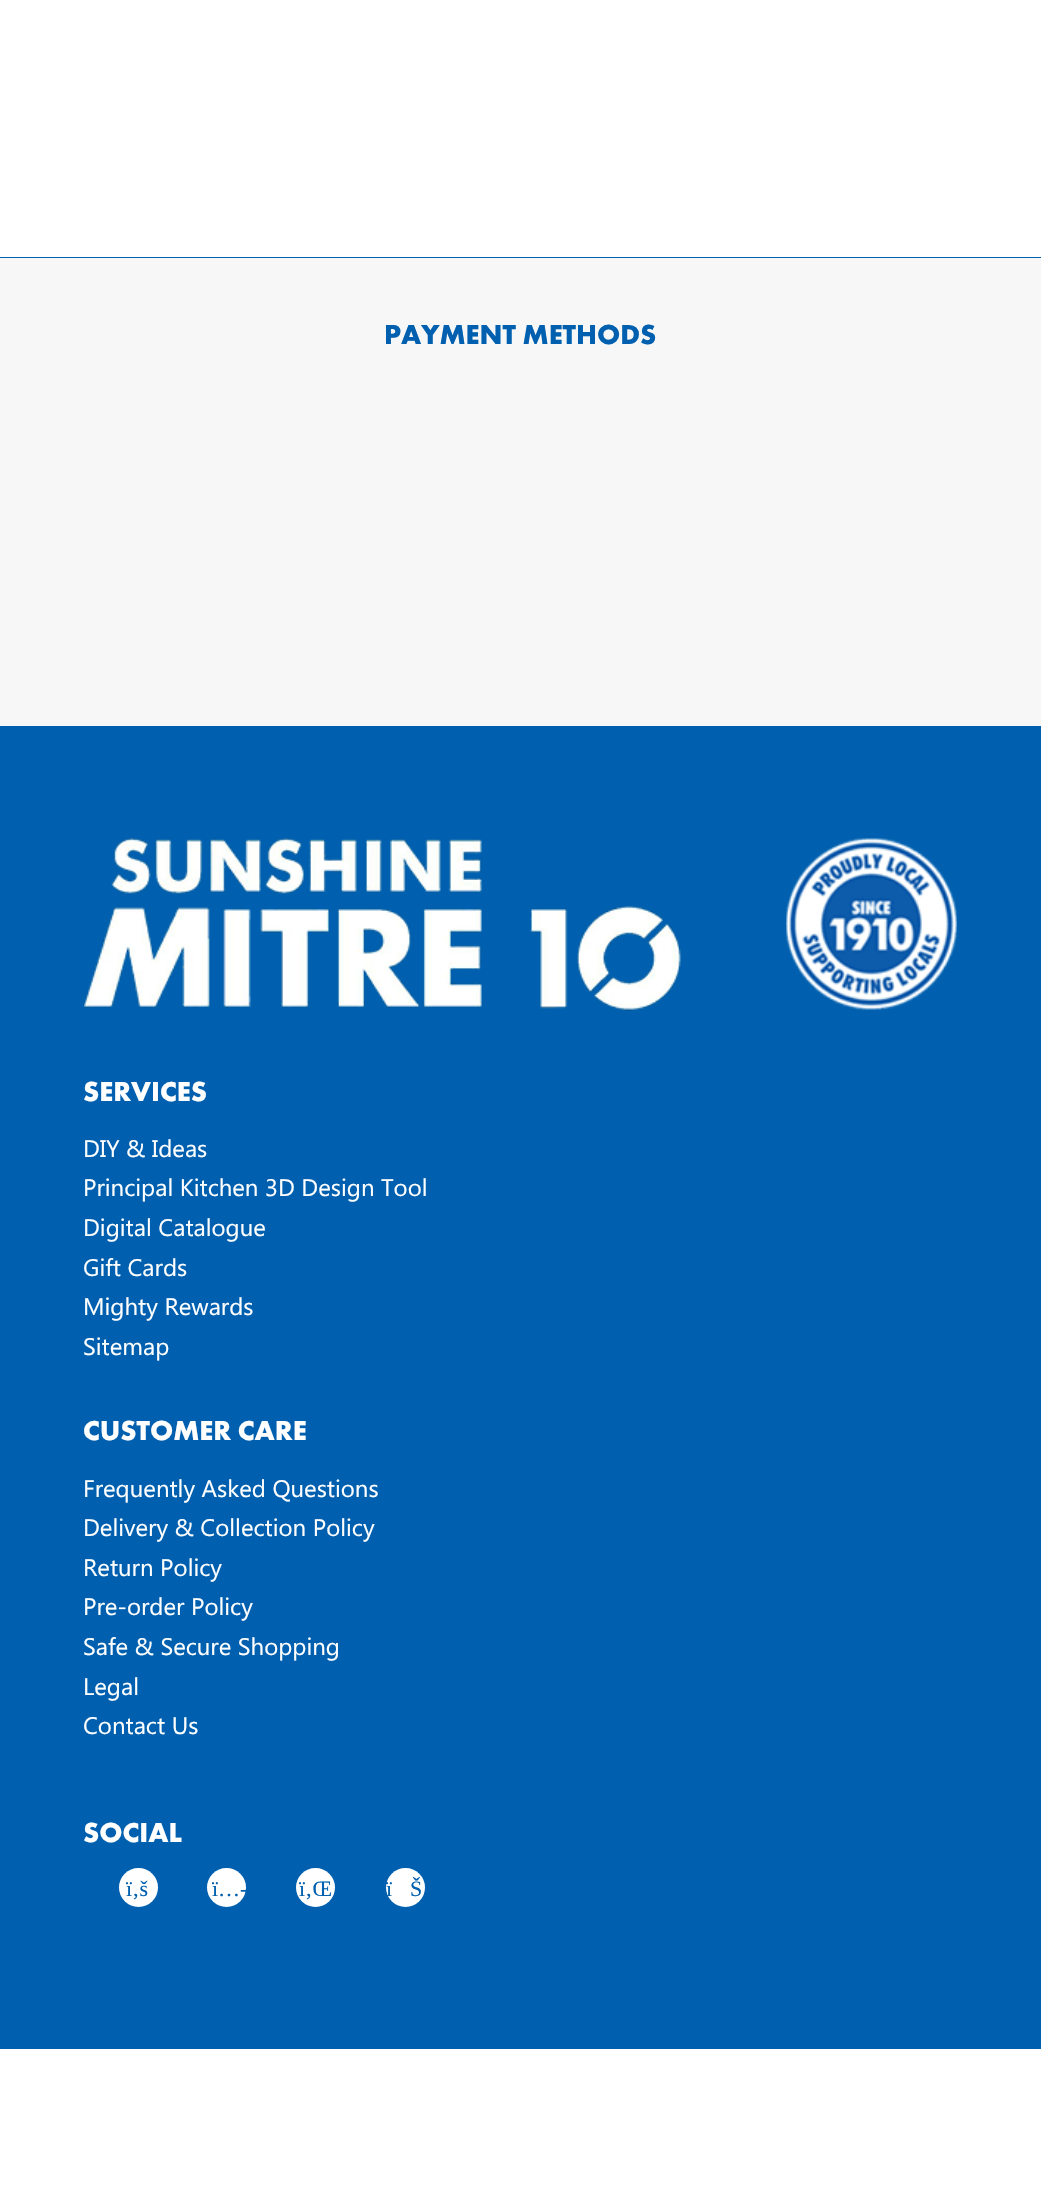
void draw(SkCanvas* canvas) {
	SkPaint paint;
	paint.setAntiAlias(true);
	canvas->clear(0xffffffff);
	paint.setColor(0xff0060af);
	canvas->drawRect(SkRect::MakeXYWH(0, 257, 1041, 1), paint);
	paint.setColor(0xfff7f7f7);
	canvas->drawRect(SkRect::MakeXYWH(0, 258, 1041, 468), paint);
	SkFont f1(fontMgr->matchFamilyStyle("Futura PT", SkFontStyle::Bold()), 28.5);
	f1.setSubpixel(true);
	paint.setColor(0xff0060af);
	canvas->drawString("PAYMENT METHODS", 384, 344, f1, paint);
	canvas->drawRect(SkRect::MakeXYWH(0, 726, 1041, 1323), paint);
	canvas->drawImageRect(SkImages::DeferredFromEncodedData(SkData::MakeFromFileName("img1.png")), SkRect::MakeXYWH(84, 838, 873, 173), SkSamplingOptions());
	paint.setColor(0xffffffff);
	canvas->drawString("SERVICES", 83, 1101, f1, paint);
	SkFont f2(fontMgr->matchFamilyStyle("Segoe UI", SkFontStyle::Normal()), 24);
	f2.setSubpixel(true);
	canvas->drawString("DIY & Ideas", 83, 1157, f2, paint);
	canvas->drawString("Principal Kitchen 3D Design Tool", 83, 1196, f2, paint);
	canvas->drawString("Digital Catalogue", 83, 1236, f2, paint);
	canvas->drawString("Gift Cards", 83, 1276, f2, paint);
	canvas->drawString("Mighty Rewards", 83, 1315, f2, paint);
	canvas->drawString("Sitemap", 83, 1355, f2, paint);
	canvas->drawString("CUSTOMER CARE", 83, 1440, f1, paint);
	canvas->drawString("Frequently Asked Questions", 83, 1497, f2, paint);
	canvas->drawString("Delivery & Collection Policy", 83, 1536, f2, paint);
	canvas->drawString("Return Policy", 83, 1576, f2, paint);
	canvas->drawString("Pre-order Policy", 83, 1615, f2, paint);
	canvas->drawString("Safe & Secure Shopping", 83, 1655, f2, paint);
	canvas->drawString("Legal", 83, 1695, f2, paint);
	canvas->drawString("Contact Us", 83, 1734, f2, paint);
	canvas->drawString("SOCIAL", 83, 1842, f1, paint);
	canvas->drawCircle(138.5, 1887.5, 19.5, paint);
	SkFont f3(fontMgr->matchFamilyStyle("Liberation Serif", SkFontStyle::Normal()), 22);
	f3.setSubpixel(true);
	paint.setColor(0xff0060af);
	canvas->drawString("ï‚š", 126, 1896, f3, paint);
	paint.setColor(0xffffffff);
	canvas->drawCircle(226.5, 1887.5, 19.5, paint);
	paint.setColor(0xff0060af);
	canvas->drawString("ï…-", 212, 1896, f3, paint);
	paint.setColor(0xffffffff);
	canvas->drawCircle(315.5, 1887.5, 19.5, paint);
	paint.setColor(0xff0060af);
	canvas->drawString("ï‚Œ", 299, 1896, f3, paint);
	paint.setColor(0xffffffff);
	canvas->drawCircle(405.5, 1887.5, 19.5, paint);
	paint.setColor(0xff0060af);
	canvas->drawString("ï", 386, 1896, f3, paint);
	canvas->drawString("Š", 410, 1896, f3, paint);
}
